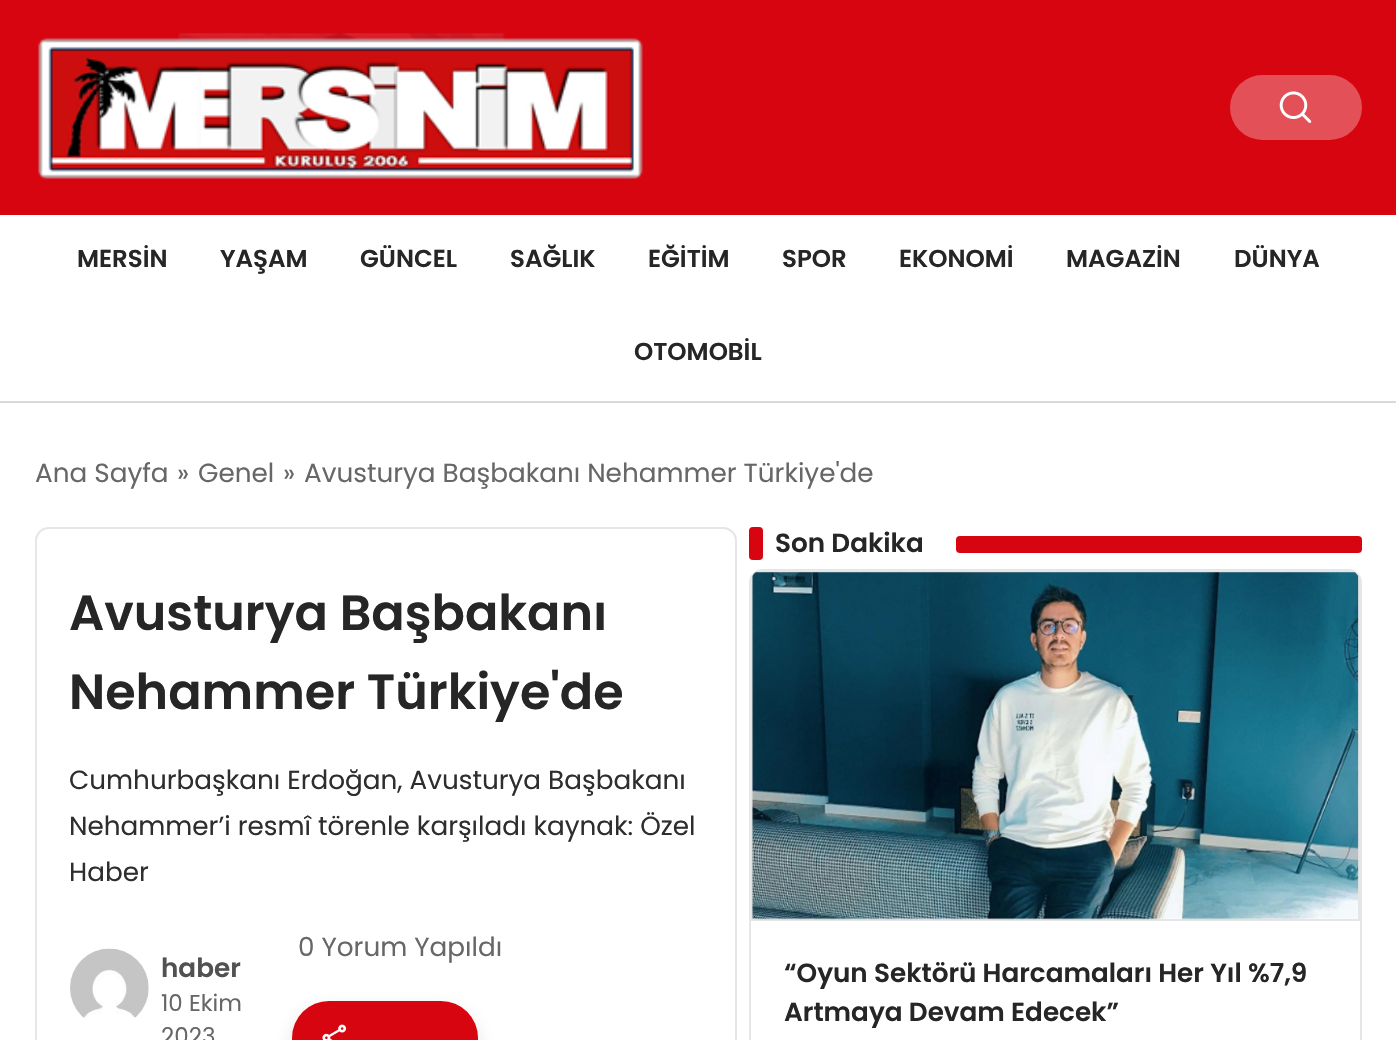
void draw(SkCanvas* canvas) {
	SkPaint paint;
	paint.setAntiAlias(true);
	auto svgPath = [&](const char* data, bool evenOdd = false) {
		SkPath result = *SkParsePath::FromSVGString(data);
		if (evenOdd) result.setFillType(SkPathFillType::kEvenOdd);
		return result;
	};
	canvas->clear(0xffffffff);
	paint.setColor(0xffd7050f);
	canvas->drawRect(SkRect::MakeXYWH(0, 0, 1396, 215), paint);
	canvas->drawImageRect(SkImages::DeferredFromEncodedData(SkData::MakeFromFileName("img1.png")), SkRect::MakeXYWH(38, 33, 605, 146), SkSamplingOptions());
	paint.setColor(0xffe35057);
	canvas->drawRoundRect(SkRect::MakeXYWH(1230, 75, 132, 65), 32.5, 32.5, paint);
	canvas->drawImageRect(SkImages::DeferredFromEncodedData(SkData::MakeFromFileName("img2.png")), SkRect::MakeXYWH(1279, 91, 33, 32), SkSamplingOptions());
	paint.setColor(0xffd9d9d9);
	canvas->drawRect(SkRect::MakeXYWH(0, 401, 1396, 2), paint);
	SkFont f1(fontMgr->matchFamilyStyle("Poppins", SkFontStyle(600, SkFontStyle::kNormal_Width, SkFontStyle::kUpright_Slant)), 24.5);
	f1.setSubpixel(true);
	paint.setColor(0xff262626);
	canvas->drawString("MERSİN", 77, 267, f1, paint);
	canvas->drawString("YAŞAM", 220, 267, f1, paint);
	canvas->drawString("GÜNCEL", 360, 267, f1, paint);
	canvas->drawString("SAĞLIK", 510, 267, f1, paint);
	canvas->drawString("EĞİTİM", 648, 267, f1, paint);
	canvas->drawString("SPOR", 782, 267, f1, paint);
	canvas->drawString("EKONOMİ", 899, 267, f1, paint);
	canvas->drawString("MAGAZİN", 1066, 267, f1, paint);
	canvas->drawString("DÜNYA", 1234, 267, f1, paint);
	canvas->drawString("OTOMOBİL", 634, 360, f1, paint);
	SkFont f2(fontMgr->matchFamilyStyle("Poppins", SkFontStyle::Normal()), 26.25);
	f2.setSubpixel(true);
	paint.setColor(0xff676767);
	canvas->drawString("Ana Sayfa", 35, 482, f2, paint);
	canvas->drawString("»", 177, 482, f2, paint);
	canvas->drawString("Genel", 198, 482, f2, paint);
	canvas->drawString("»", 283, 482, f2, paint);
	canvas->drawString("Avusturya Başbakanı Nehammer Türkiye'de", 304, 482, f2, paint);
	paint.setStroke(true);
	paint.setStrokeWidth(2);
	paint.setColor(0xffe6e6e6);
	canvas->drawRoundRect(SkRect::MakeXYWH(36, 528, 700, 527), 13, 13, paint);
	SkFont f3(fontMgr->matchFamilyStyle("Poppins", SkFontStyle(600, SkFontStyle::kNormal_Width, SkFontStyle::kUpright_Slant)), 49.25);
	f3.setSubpixel(true);
	paint.setStroke(false);
	paint.setColor(0xff262626);
	canvas->drawString("Avusturya Başbakanı", 69, 630, f3, paint);
	canvas->drawString("Nehammer Türkiye'de", 69, 709, f3, paint);
	paint.setColor(0xff2e2e2e);
	canvas->drawString("Cumhurbaşkanı Erdoğan, Avusturya Başbakanı", 69, 789, f2, paint);
	canvas->drawString("Nehammer’i resmî törenle karşıladı kaynak: Özel", 69, 835, f2, paint);
	canvas->drawString("Haber", 69, 881, f2, paint);
	paint.setColor(0xff676767);
	canvas->drawString("0 Yorum Yapıldı", 298, 956, f2, paint);
	paint.setColor(0x336b7280);
	paint.setMaskFilter(SkMaskFilter::MakeBlur(kNormal_SkBlurStyle, 9));
	canvas->drawRoundRect(SkRect::MakeXYWH(292, 1008, 186, 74), 37, 37, paint);
	paint.setMaskFilter(nullptr);
	paint.setColor(0xffd7050f);
	canvas->drawRoundRect(SkRect::MakeXYWH(292, 1001, 186, 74), 37, 37, paint);
	canvas->drawImageRect(SkImages::DeferredFromEncodedData(SkData::MakeFromFileName("img3.png")), SkRect::MakeXYWH(322, 1024, 25, 16), SkSamplingOptions());
	canvas->drawImageRect(SkImages::DeferredFromEncodedData(SkData::MakeFromFileName("img4.png")), SkRect::MakeXYWH(70, 948, 79, 70), SkSamplingOptions());
	SkFont f4(fontMgr->matchFamilyStyle("Poppins", SkFontStyle(600, SkFontStyle::kNormal_Width, SkFontStyle::kUpright_Slant)), 26.25);
	f4.setSubpixel(true);
	paint.setColor(0xff515151);
	canvas->drawString("haber", 161, 977, f4, paint);
	SkFont f5(fontMgr->matchFamilyStyle("Poppins", SkFontStyle::Normal()), 23);
	f5.setSubpixel(true);
	paint.setColor(0xff676767);
	canvas->drawString("10 Ekim", 161, 1011, f5, paint);
	canvas->drawString("2023", 161, 1044, f5, paint);
	paint.setColor(0xffd7050f);
	canvas->drawRoundRect(SkRect::MakeXYWH(749, 527, 14, 33), 4, 4, paint);
	paint.setColor(0xff262626);
	canvas->drawString("Son Dakika", 775, 552, f4, paint);
	paint.setColor(0xffd7050f);
	canvas->drawRoundRect(SkRect::MakeXYWH(956, 536, 406, 17), 4, 4, paint);
	paint.setStroke(true);
	paint.setColor(0xffe6e6e6);
	canvas->drawRoundRect(SkRect::MakeXYWH(750, 570, 611, 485), 13, 13, paint);
	paint.setStroke(false);
	paint.setColor(0x1a000000);
	canvas->drawPath(svgPath("M751 583V921H1360V583C1360 581 1359 578 1358 576V919H753V576C752 578 751 581 751 583ZM763 571C761 571 758 572 756 573H1355C1353 572 1350 571 1348 571Z", true), paint);
	canvas->drawImageRect(SkImages::DeferredFromEncodedData(SkData::MakeFromFileName("img5.png")), SkRect::MakeXYWH(752, 572, 607, 348), SkSamplingOptions());
	paint.setColor(0xff262626);
	canvas->drawString("“Oyun Sektörü Harcamaları Her Yıl %7,9", 784, 982, f4, paint);
	canvas->drawString("Artmaya Devam Edecek”", 784, 1021, f4, paint);
}
